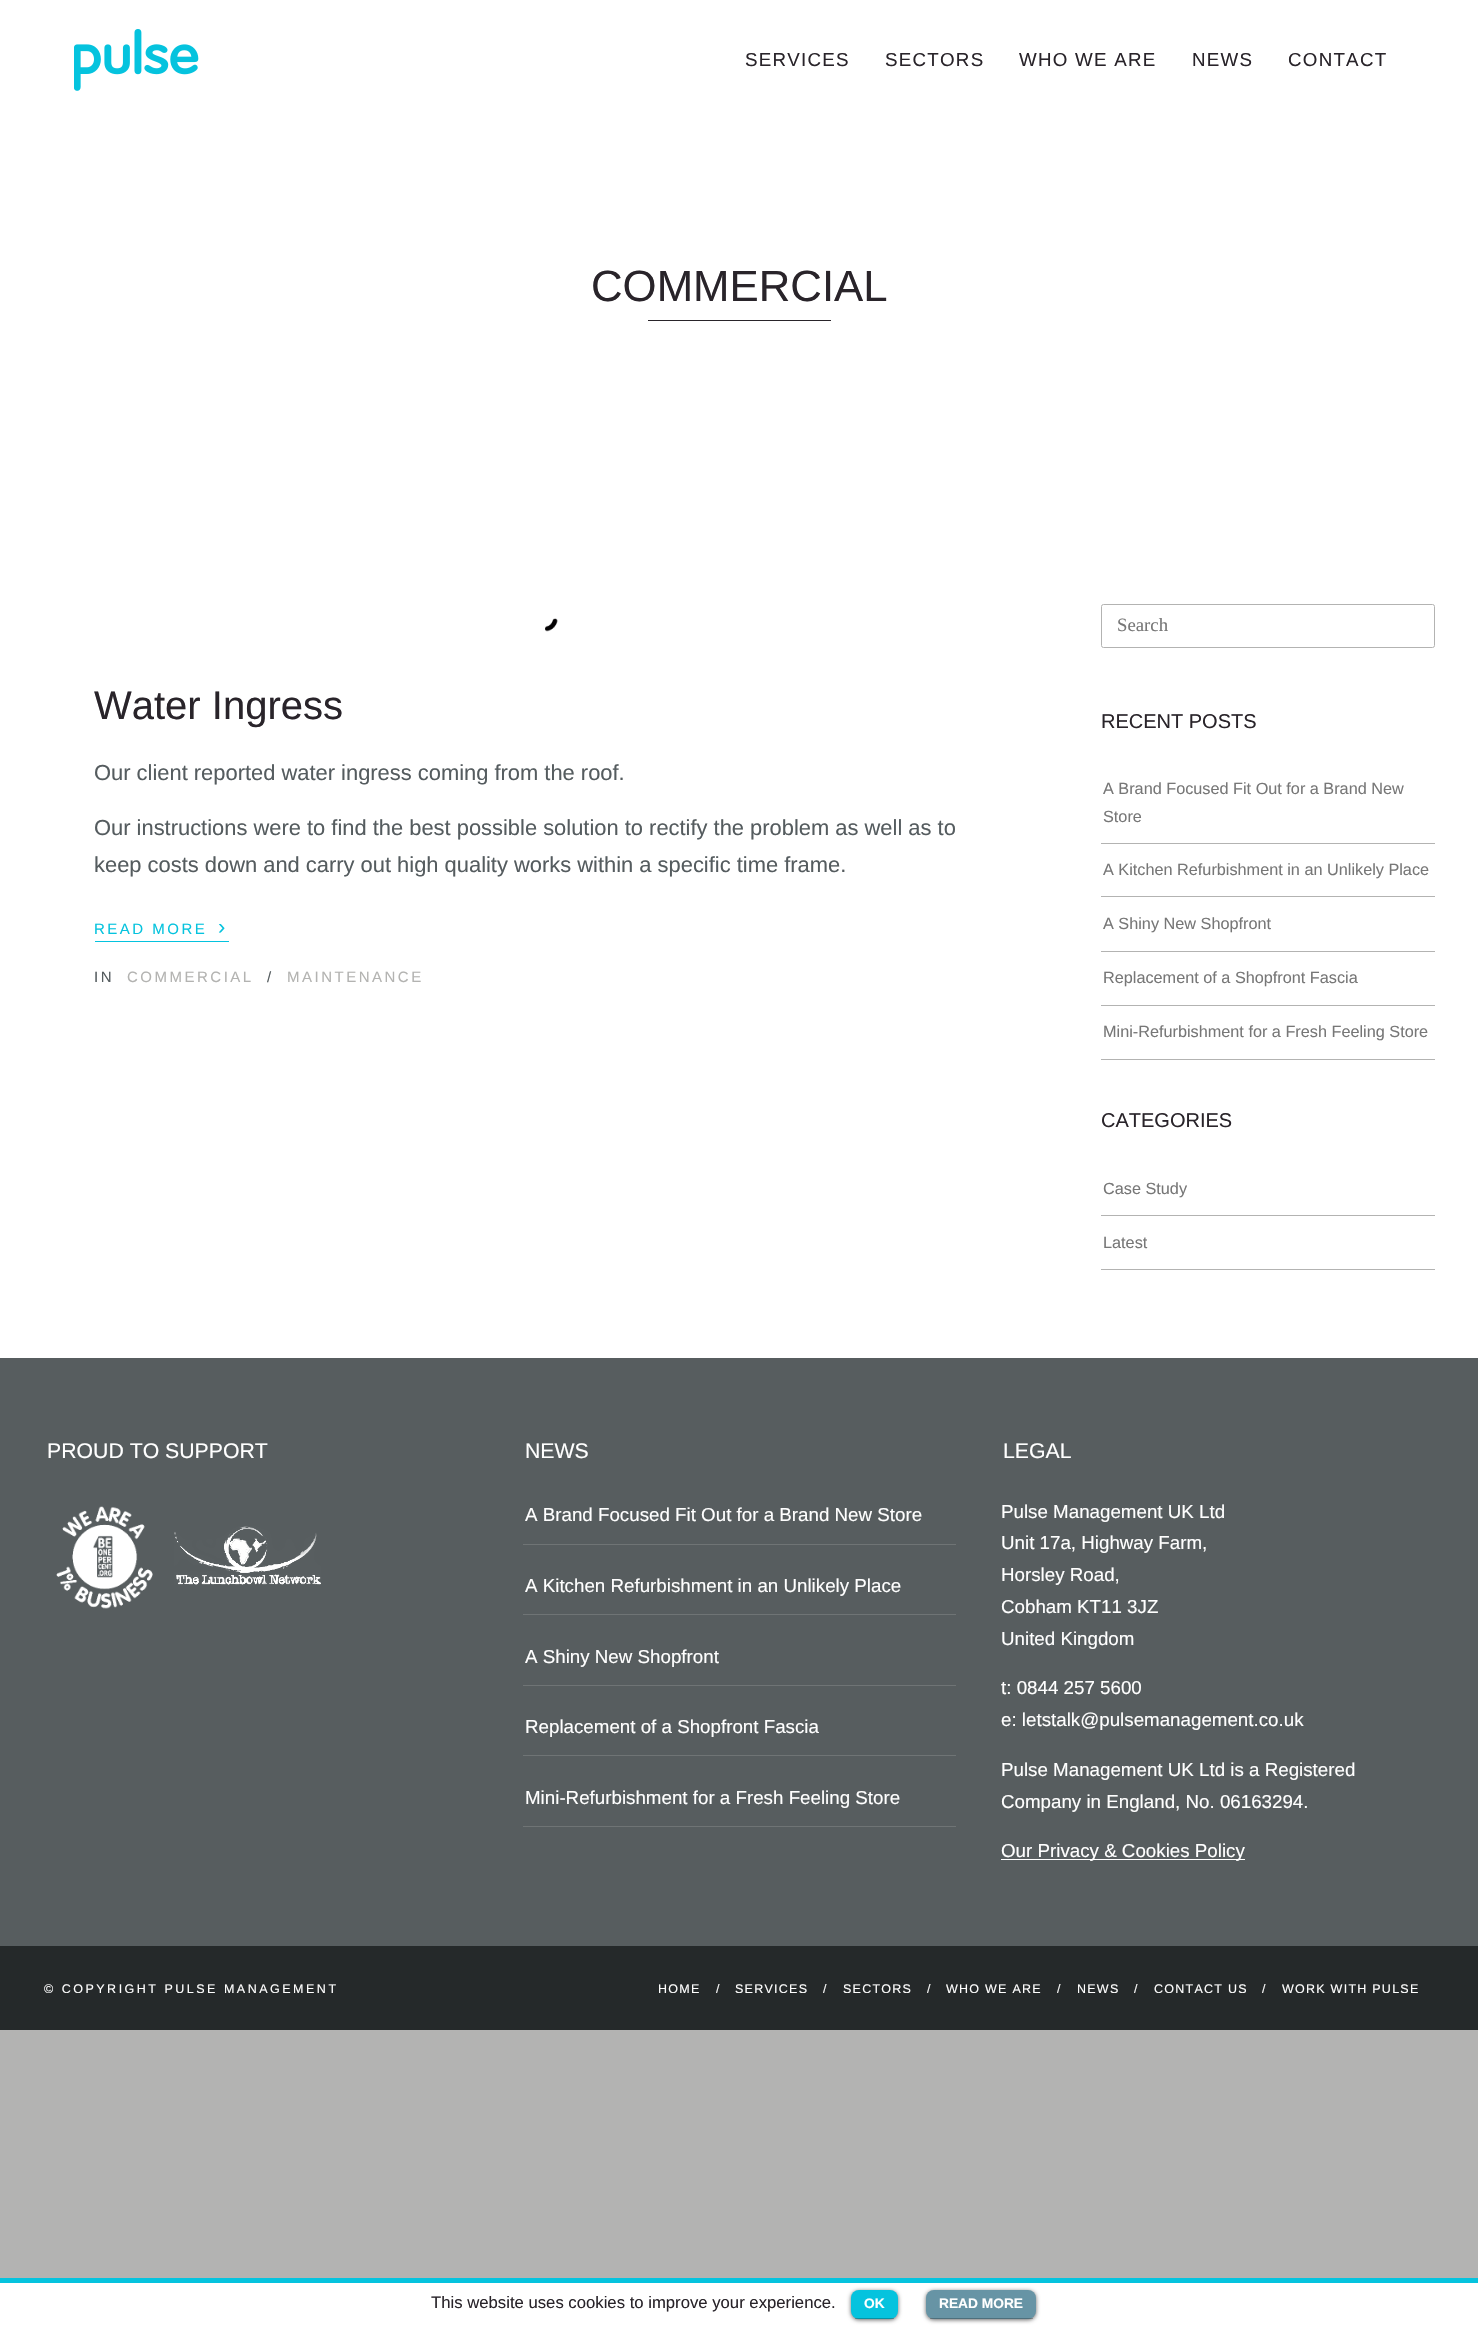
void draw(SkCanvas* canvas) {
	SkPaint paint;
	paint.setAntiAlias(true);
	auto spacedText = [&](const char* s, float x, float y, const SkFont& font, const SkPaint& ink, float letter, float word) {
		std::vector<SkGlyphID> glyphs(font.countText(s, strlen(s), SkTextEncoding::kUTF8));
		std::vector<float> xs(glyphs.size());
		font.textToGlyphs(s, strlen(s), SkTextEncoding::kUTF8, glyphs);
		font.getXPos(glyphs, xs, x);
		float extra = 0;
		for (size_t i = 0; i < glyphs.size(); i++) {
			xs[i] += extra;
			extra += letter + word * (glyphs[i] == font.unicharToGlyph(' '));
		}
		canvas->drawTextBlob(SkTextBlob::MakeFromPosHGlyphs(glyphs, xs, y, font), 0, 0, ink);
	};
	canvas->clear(0xffb3b3b2);
	paint.setColor(0xffffffff);
	canvas->drawRect(SkRect::MakeXYWH(0, 0, 1478, 1358), paint);
	canvas->drawImageRect(SkImages::DeferredFromEncodedData(SkData::MakeFromFileName("img1.png")), SkRect::MakeXYWH(74, 29, 125, 62), SkSamplingOptions());
	SkFont f1(fontMgr->matchFamilyStyle("Liberation Sans", SkFontStyle::Normal()), 18.75);
	f1.setSubpixel(true);
	paint.setColor(0xff29242a);
	spacedText("SERVICES", 745, 66, f1, paint, 1.25, 0);
	spacedText("SECTORS", 885, 66, f1, paint, 1.25, 0);
	spacedText("WHO WE ARE", 1019, 66, f1, paint, 1.25, 0);
	spacedText("NEWS", 1192, 66, f1, paint, 1.25, 0);
	spacedText("CONTACT", 1288, 66, f1, paint, 1.25, 0);
	SkFont f2(fontMgr->matchFamilyStyle("Liberation Sans", SkFontStyle::Normal()), 43.75);
	f2.setSubpixel(true);
	canvas->drawString("COMMERCIAL", 591, 301, f2, paint);
	canvas->drawRect(SkRect::MakeXYWH(648, 320, 183, 1), paint);
	canvas->drawImageRect(SkImages::DeferredFromEncodedData(SkData::MakeFromFileName("img2.png")), SkRect::MakeXYWH(545, 618, 13, 14), SkSamplingOptions());
	SkFont f3(fontMgr->matchFamilyStyle("Liberation Sans", SkFontStyle::Normal()), 40);
	f3.setSubpixel(true);
	canvas->drawString("Water Ingress", 94, 719, f3, paint);
	SkFont f4(fontMgr->matchFamilyStyle("Liberation Sans", SkFontStyle::Normal()), 21.9);
	f4.setSubpixel(true);
	paint.setColor(0xff555c5f);
	canvas->drawString("Our client reported water ingress coming from the roof.", 94, 780, f4, paint);
	canvas->drawString("Our instructions were to find the best possible solution to rectify the problem as well as to", 94, 835, f4, paint);
	canvas->drawString("keep costs down and carry out high quality works within a specific time frame.", 94, 872, f4, paint);
	paint.setColor(0xff05c3de);
	canvas->drawRect(SkRect::MakeXYWH(95, 941, 134, 1), paint);
	SkFont f5(fontMgr->matchFamilyStyle("Liberation Sans", SkFontStyle::Normal()), 15);
	f5.setSubpixel(true);
	spacedText("READ MORE", 94, 934, f5, paint, 2.5, 0);
	SkFont f6(fontMgr->matchFamilyStyle("Liberation Sans", SkFontStyle::Normal()), 22);
	f6.setSubpixel(true);
	spacedText("›", 218, 934, f6, paint, 2.5, 0);
	paint.setColor(0xff555c5f);
	spacedText("IN", 94, 982, f5, paint, 2.5, 0);
	paint.setColor(0xffb3b3b1);
	spacedText("COMMERCIAL", 127, 982, f5, paint, 2.5, 0);
	paint.setColor(0xff555c5f);
	spacedText("/", 267, 982, f5, paint, 2.5, 0);
	paint.setColor(0xffb3b3b1);
	spacedText("MAINTENANCE", 287, 982, f5, paint, 2.5, 0);
	paint.setStroke(true);
	paint.setStrokeWidth(1);
	paint.setColor(0xffb3b3b2);
	canvas->drawRoundRect(SkRect::MakeXYWH(1101.5, 604.5, 333, 43), 2, 2, paint);
	SkFont f7(fontMgr->matchFamilyStyle("Liberation Serif", SkFontStyle::Normal()), 18.75);
	f7.setSubpixel(true);
	paint.setStroke(false);
	paint.setColor(0xff777777);
	canvas->drawString("Search", 1117, 631, f7, paint);
	SkFont f8(fontMgr->matchFamilyStyle("Liberation Sans", SkFontStyle::Normal()), 20);
	f8.setSubpixel(true);
	paint.setColor(0xff29242a);
	canvas->drawString("RECENT POSTS", 1101, 728, f8, paint);
	paint.setColor(0xffb3b3b2);
	canvas->drawRect(SkRect::MakeXYWH(1101, 843, 334, 1), paint);
	SkFont f9(fontMgr->matchFamilyStyle("Liberation Sans", SkFontStyle::Normal()), 16.25);
	f9.setSubpixel(true);
	paint.setColor(0xff777777);
	canvas->drawString("A Brand Focused Fit Out for a Brand New", 1103, 794, f9, paint);
	canvas->drawString("Store", 1103, 822, f9, paint);
	paint.setColor(0xffb3b3b2);
	canvas->drawRect(SkRect::MakeXYWH(1101, 896, 334, 1), paint);
	paint.setColor(0xff777777);
	canvas->drawString("A Kitchen Refurbishment in an Unlikely Place", 1103, 875, f9, paint);
	paint.setColor(0xffb3b3b2);
	canvas->drawRect(SkRect::MakeXYWH(1101, 951, 334, 1), paint);
	paint.setColor(0xff777777);
	canvas->drawString("A Shiny New Shopfront", 1103, 929, f9, paint);
	paint.setColor(0xffb3b3b2);
	canvas->drawRect(SkRect::MakeXYWH(1101, 1005, 334, 1), paint);
	paint.setColor(0xff777777);
	canvas->drawString("Replacement of a Shopfront Fascia", 1103, 983, f9, paint);
	paint.setColor(0xffb3b3b2);
	canvas->drawRect(SkRect::MakeXYWH(1101, 1059, 334, 1), paint);
	paint.setColor(0xff777777);
	canvas->drawString("Mini-Refurbishment for a Fresh Feeling Store", 1103, 1037, f9, paint);
	paint.setColor(0xff29242a);
	canvas->drawString("CATEGORIES", 1101, 1127, f8, paint);
	paint.setColor(0xffb3b3b2);
	canvas->drawRect(SkRect::MakeXYWH(1101, 1215, 334, 1), paint);
	paint.setColor(0xff777777);
	canvas->drawString("Case Study", 1103, 1194, f9, paint);
	paint.setColor(0xffb3b3b2);
	canvas->drawRect(SkRect::MakeXYWH(1101, 1269, 334, 1), paint);
	paint.setColor(0xff777777);
	canvas->drawString("Latest", 1103, 1248, f9, paint);
	paint.setColor(0xff575d5f);
	canvas->drawRect(SkRect::MakeXYWH(0, 1358, 1478, 588), paint);
	SkFont f10(fontMgr->matchFamilyStyle("Liberation Sans", SkFontStyle::Normal()), 21.25);
	f10.setSubpixel(true);
	paint.setColor(0xffffffff);
	canvas->drawString("PROUD TO SUPPORT", 47, 1458, f10, paint);
	canvas->drawImageRect(SkImages::DeferredFromEncodedData(SkData::MakeFromFileName("img3.png")), SkRect::MakeXYWH(56, 1506, 97, 103), SkSamplingOptions());
	canvas->drawImageRect(SkImages::DeferredFromEncodedData(SkData::MakeFromFileName("img4.png")), SkRect::MakeXYWH(174, 1526, 147, 59), SkSamplingOptions());
	canvas->drawString("NEWS", 525, 1458, f10, paint);
	paint.setColor(0xff6f7475);
	canvas->drawRect(SkRect::MakeXYWH(523, 1544, 433, 1), paint);
	paint.setColor(0xffffffff);
	canvas->drawString("A Brand Focused Fit Out for a Brand New Store", 525, 1521, f1, paint);
	paint.setColor(0xff6f7475);
	canvas->drawRect(SkRect::MakeXYWH(523, 1614, 433, 1), paint);
	paint.setColor(0xffffffff);
	canvas->drawString("A Kitchen Refurbishment in an Unlikely Place", 525, 1592, f1, paint);
	paint.setColor(0xff6f7475);
	canvas->drawRect(SkRect::MakeXYWH(523, 1685, 433, 1), paint);
	paint.setColor(0xffffffff);
	canvas->drawString("A Shiny New Shopfront", 525, 1663, f1, paint);
	paint.setColor(0xff6f7475);
	canvas->drawRect(SkRect::MakeXYWH(523, 1755, 433, 1), paint);
	paint.setColor(0xffffffff);
	canvas->drawString("Replacement of a Shopfront Fascia", 525, 1733, f1, paint);
	paint.setColor(0xff6f7475);
	canvas->drawRect(SkRect::MakeXYWH(523, 1826, 433, 1), paint);
	paint.setColor(0xffffffff);
	canvas->drawString("Mini-Refurbishment for a Fresh Feeling Store", 525, 1804, f1, paint);
	canvas->drawString("LEGAL", 1003, 1458, f10, paint);
	canvas->drawString("Pulse Management UK Ltd", 1001, 1518, f1, paint);
	canvas->drawString("Unit 17a, Highway Farm,", 1001, 1549, f1, paint);
	canvas->drawString("Horsley Road,", 1001, 1581, f1, paint);
	canvas->drawString("Cobham KT11 3JZ", 1001, 1613, f1, paint);
	canvas->drawString("United Kingdom", 1001, 1645, f1, paint);
	canvas->drawString("t: 0844 257 5600", 1001, 1694, f1, paint);
	canvas->drawString("e: letstalk@pulsemanagement.co.uk", 1001, 1726, f1, paint);
	canvas->drawString("Pulse Management UK Ltd is a Registered", 1001, 1776, f1, paint);
	canvas->drawString("Company in England, No. 06163294.", 1001, 1808, f1, paint);
	canvas->drawRect(SkRect::MakeXYWH(1001, 1859, 244, 1), paint);
	canvas->drawString("Our Privacy & Cookies Policy", 1001, 1857, f1, paint);
	paint.setColor(0xff25292a);
	canvas->drawRect(SkRect::MakeXYWH(0, 1946, 1478, 84), paint);
	SkFont f11(fontMgr->matchFamilyStyle("Liberation Sans", SkFontStyle::Normal()), 12.5);
	f11.setSubpixel(true);
	paint.setColor(0xffffffff);
	spacedText("© COPYRIGHT PULSE MANAGEMENT", 44, 1993, f11, paint, 2.5, 0);
	spacedText("HOME", 658, 1993, f11, paint, 1.25, 0);
	paint.setColor(0xfff7f7f7);
	spacedText("/", 716, 1993, f11, paint, 1.25, 0);
	paint.setColor(0xffffffff);
	spacedText("SERVICES", 735, 1993, f11, paint, 1.25, 0);
	paint.setColor(0xfff7f7f7);
	spacedText("/", 823, 1993, f11, paint, 1.25, 0);
	paint.setColor(0xffffffff);
	spacedText("SECTORS", 843, 1993, f11, paint, 1.25, 0);
	paint.setColor(0xfff7f7f7);
	spacedText("/", 927, 1993, f11, paint, 1.25, 0);
	paint.setColor(0xffffffff);
	spacedText("WHO WE ARE", 946, 1993, f11, paint, 1.25, 0);
	paint.setColor(0xfff7f7f7);
	spacedText("/", 1057, 1993, f11, paint, 1.25, 0);
	paint.setColor(0xffffffff);
	spacedText("NEWS", 1077, 1993, f11, paint, 1.25, 0);
	paint.setColor(0xfff7f7f7);
	spacedText("/", 1134, 1993, f11, paint, 1.25, 0);
	paint.setColor(0xffffffff);
	spacedText("CONTACT US", 1154, 1993, f11, paint, 1.25, 0);
	paint.setColor(0xfff7f7f7);
	spacedText("/", 1262, 1993, f11, paint, 1.25, 0);
	paint.setColor(0xffffffff);
	spacedText("WORK WITH PULSE", 1282, 1993, f11, paint, 1.25, 0);
	canvas->drawRect(SkRect::MakeXYWH(0, 2283, 1478, 42), paint);
	paint.setColor(0xff05c3de);
	canvas->drawRect(SkRect::MakeXYWH(0, 2278, 1478, 5), paint);
	SkFont f12(fontMgr->matchFamilyStyle("Liberation Sans", SkFontStyle::Normal()), 16.7);
	f12.setSubpixel(true);
	paint.setColor(0xff29242a);
	canvas->drawString("This website uses cookies to improve your experience.", 431, 2308, f12, paint);
	paint.setColor(0x99000000);
	paint.setMaskFilter(SkMaskFilter::MakeBlur(kNormal_SkBlurStyle, 2));
	canvas->drawRoundRect(SkRect::MakeXYWH(851, 2291, 47, 29), 8, 8, paint);
	paint.setMaskFilter(nullptr);
	paint.setColor(0xff05c3de);
	canvas->drawRoundRect(SkRect::MakeXYWH(851, 2290, 47, 29), 8, 8, paint);
	paint.setColor(0x40000000);
	canvas->drawRect(SkRect::MakeXYWH(855, 2318, 39, 1), paint);
	SkFont f13(fontMgr->matchFamilyStyle("Liberation Sans", SkFontStyle::Bold()), 13.75);
	f13.setSubpixel(true);
	paint.setColor(0xffffffff);
	canvas->drawString("OK", 864, 2308, f13, paint);
	paint.setColor(0x99000000);
	paint.setMaskFilter(SkMaskFilter::MakeBlur(kNormal_SkBlurStyle, 2));
	canvas->drawRoundRect(SkRect::MakeXYWH(926, 2291, 110, 29), 8, 8, paint);
	paint.setMaskFilter(nullptr);
	paint.setColor(0xff6794a5);
	canvas->drawRoundRect(SkRect::MakeXYWH(926, 2290, 110, 29), 8, 8, paint);
	paint.setColor(0x40000000);
	canvas->drawRect(SkRect::MakeXYWH(930, 2318, 103, 1), paint);
	paint.setColor(0xffffffff);
	canvas->drawString("READ MORE", 939, 2308, f13, paint);
}
